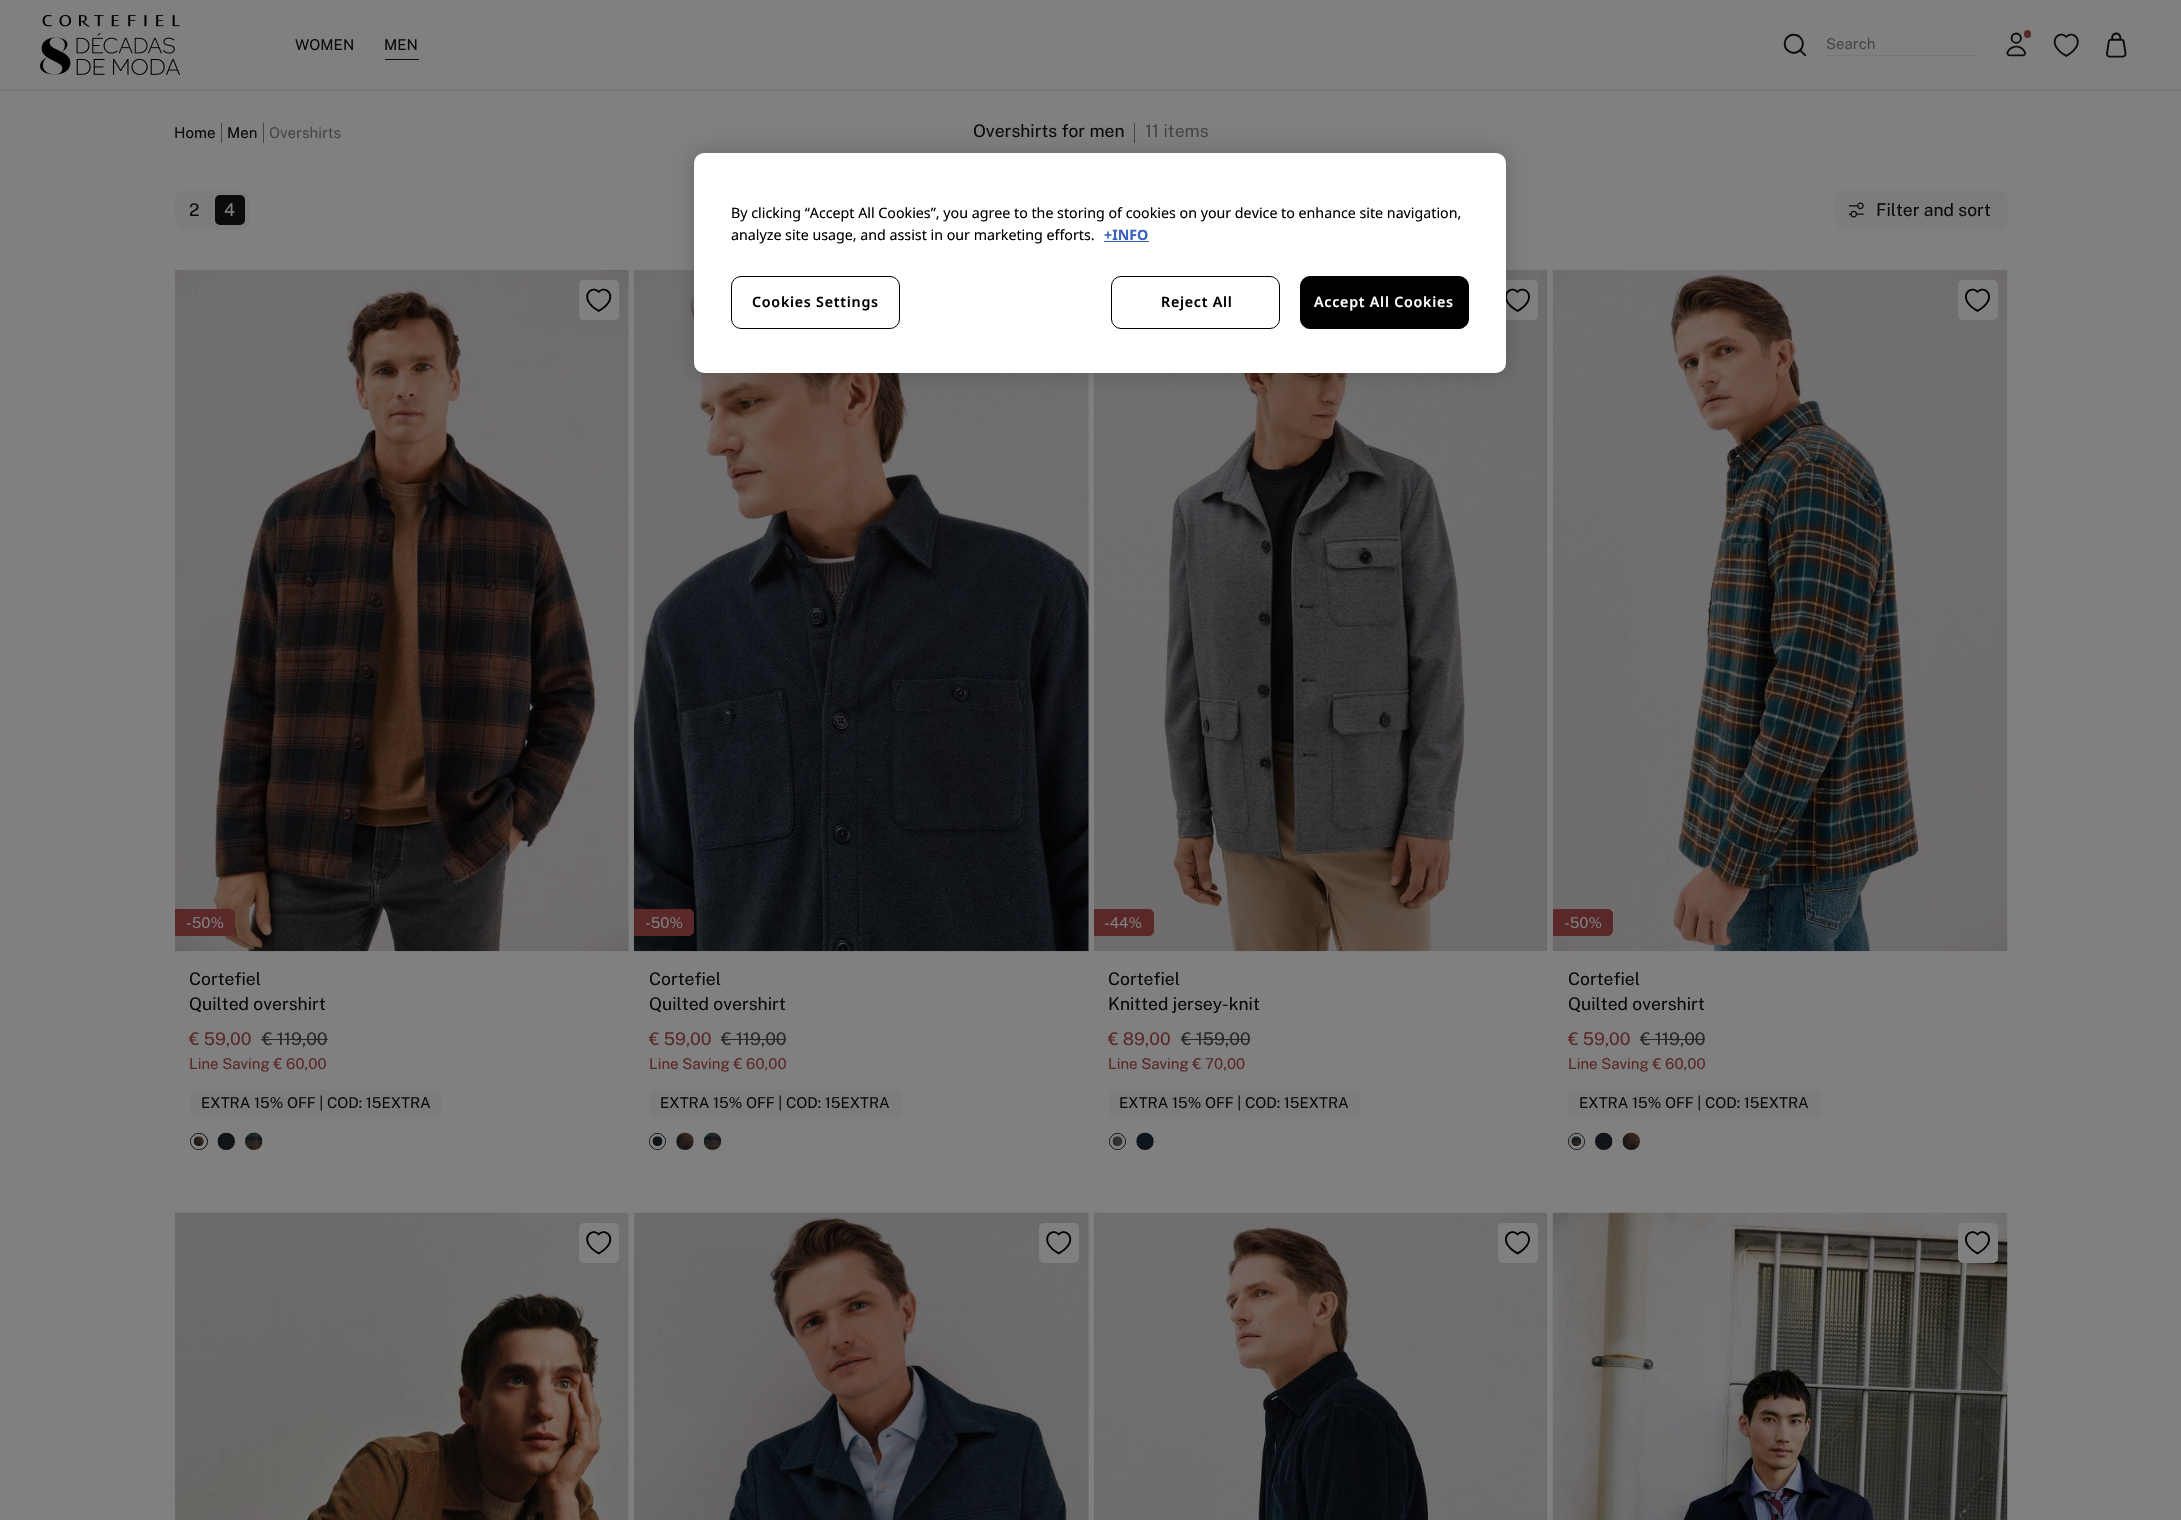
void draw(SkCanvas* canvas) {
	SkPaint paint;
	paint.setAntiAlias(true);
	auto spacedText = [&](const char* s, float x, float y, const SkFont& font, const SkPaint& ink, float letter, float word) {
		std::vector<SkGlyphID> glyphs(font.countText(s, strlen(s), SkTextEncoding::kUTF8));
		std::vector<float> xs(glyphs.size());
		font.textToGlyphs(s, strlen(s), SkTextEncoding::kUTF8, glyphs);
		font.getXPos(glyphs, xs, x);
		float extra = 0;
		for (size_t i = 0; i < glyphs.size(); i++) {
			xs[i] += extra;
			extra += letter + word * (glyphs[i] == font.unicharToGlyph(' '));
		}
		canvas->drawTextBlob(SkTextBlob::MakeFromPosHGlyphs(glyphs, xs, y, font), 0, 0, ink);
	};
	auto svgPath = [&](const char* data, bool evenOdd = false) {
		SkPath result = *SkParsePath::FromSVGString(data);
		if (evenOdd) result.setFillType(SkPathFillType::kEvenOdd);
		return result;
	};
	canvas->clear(0xff808080);
	paint.setColor(0xff767676);
	canvas->drawRect(SkRect::MakeXYWH(0, 90, 2181, 1), paint);
	canvas->drawImageRect(SkImages::DeferredFromEncodedData(SkData::MakeFromFileName("img1.png")), SkRect::MakeXYWH(40, 15, 140, 60), SkSamplingOptions());
	SkFont f1(fontMgr->matchFamilyStyle("Public Sans", SkFontStyle::Normal()), 15);
	f1.setSubpixel(true);
	paint.setColor(0xff0a0b0c);
	canvas->drawString("WOMEN", 295, 50, f1, paint);
	canvas->drawString("MEN", 384, 50, f1, paint);
	canvas->drawRect(SkRect::MakeXYWH(385, 59, 34, 1), paint);
	canvas->drawImageRect(SkImages::DeferredFromEncodedData(SkData::MakeFromFileName("img2.png")), SkRect::MakeXYWH(1783, 33, 24, 24), SkSamplingOptions());
	paint.setColor(0xff767676);
	canvas->drawRect(SkRect::MakeXYWH(1826, 55, 150, 1), paint);
	paint.setColor(0xff444648);
	canvas->drawString("Search", 1826, 49, f1, paint);
	canvas->drawImageRect(SkImages::DeferredFromEncodedData(SkData::MakeFromFileName("img3.png")), SkRect::MakeXYWH(2006, 32, 20, 25), SkSamplingOptions());
	paint.setColor(0xff5a2828);
	canvas->drawRoundRect(SkRect::MakeXYWH(2024, 30, 7, 8), 3.5, 3.5, paint);
	canvas->drawImageRect(SkImages::DeferredFromEncodedData(SkData::MakeFromFileName("img4.png")), SkRect::MakeXYWH(2053, 33, 26, 24), SkSamplingOptions());
	canvas->drawImageRect(SkImages::DeferredFromEncodedData(SkData::MakeFromFileName("img5.png")), SkRect::MakeXYWH(2106, 32, 21, 26), SkSamplingOptions());
	paint.setColor(0xff0a0b0c);
	canvas->drawString("Home", 174, 138, f1, paint);
	paint.setColor(0xff444648);
	canvas->drawRect(SkRect::MakeXYWH(221, 123, 1, 20), paint);
	paint.setColor(0xff0a0b0c);
	canvas->drawString("Men", 227, 138, f1, paint);
	paint.setColor(0xff444648);
	canvas->drawRect(SkRect::MakeXYWH(263, 123, 1, 20), paint);
	canvas->drawString("Overshirts", 269, 138, f1, paint);
	SkFont f2(fontMgr->matchFamilyStyle("Public Sans", SkFontStyle::Normal()), 17.5);
	f2.setSubpixel(true);
	paint.setColor(0xff0a0b0c);
	canvas->drawString("Overshirts for men", 973, 137, f2, paint);
	paint.setColor(0xff444648);
	canvas->drawRect(SkRect::MakeXYWH(1134, 123, 1, 20), paint);
	canvas->drawString("11 items", 1145, 137, f2, paint);
	paint.setColor(0xff7c7c7c);
	canvas->drawRoundRect(SkRect::MakeXYWH(175, 190, 75, 40), 10, 10, paint);
	paint.setColor(0xff0a0b0c);
	canvas->drawString("2", 189, 216, f2, paint);
	canvas->drawRoundRect(SkRect::MakeXYWH(215, 195, 30, 30), 5, 5, paint);
	paint.setColor(0xff808080);
	canvas->drawString("4", 224, 216, f2, paint);
	paint.setColor(0xff7c7c7c);
	canvas->drawRoundRect(SkRect::MakeXYWH(1835, 190, 173, 40), 10, 10, paint);
	canvas->drawImageRect(SkImages::DeferredFromEncodedData(SkData::MakeFromFileName("img6.png")), SkRect::MakeXYWH(1848, 202, 16, 16), SkSamplingOptions());
	paint.setColor(0xff0a0b0c);
	canvas->drawString("Filter and sort", 1876, 216, f2, paint);
	canvas->drawImageRect(SkImages::DeferredFromEncodedData(SkData::MakeFromFileName("img7.png")), SkRect::MakeXYWH(175, 270, 454, 682), SkSamplingOptions());
	paint.setColor(0xff808080);
	canvas->drawRoundRect(SkRect::MakeXYWH(579, 280, 40, 40), 5, 5, paint);
	canvas->drawImageRect(SkImages::DeferredFromEncodedData(SkData::MakeFromFileName("img8.png")), SkRect::MakeXYWH(586, 288, 26, 24), SkSamplingOptions());
	paint.setColor(0xff5a2828);
	canvas->drawPath(svgPath("M175.5 909.5H230C232.5 909.5 234.5 911.5 234.5 914V931C234.5 933.5 232.5 935.5 230 935.5H175.5Z"), paint);
	paint.setStroke(true);
	paint.setStrokeWidth(1);
	canvas->drawPath(svgPath("M175.5 909.5H230C232.5 909.5 234.5 911.5 234.5 914V931C234.5 933.5 232.5 935.5 230 935.5H175.5Z"), paint);
	paint.setStroke(false);
	paint.setColor(0xff808080);
	canvas->drawString("-50%", 186, 928, f1, paint);
	paint.setColor(0xff0a0b0c);
	canvas->drawString("Cortefiel", 189, 985, f2, paint);
	canvas->drawString("Quilted overshirt", 189, 1010, f2, paint);
	paint.setColor(0xff5a2828);
	canvas->drawString("€ 59,00", 189, 1045, f2, paint);
	paint.setColor(0xff26292c);
	canvas->drawString("€ 119,00", 262, 1045, f2, paint);
	canvas->drawRect(SkRect::MakeXYWH(261, 1039, 67, 1), paint);
	paint.setColor(0xff5a2828);
	canvas->drawString("Line Saving € 60,00", 189, 1069, f1, paint);
	paint.setColor(0xff7c7c7c);
	canvas->drawRoundRect(SkRect::MakeXYWH(190, 1090, 251, 28), 5, 5, paint);
	paint.setColor(0xff0a0b0c);
	canvas->drawString("EXTRA 15% OFF | COD: 15EXTRA", 201, 1108, f1, paint);
	paint.setStroke(true);
	canvas->drawRoundRect(SkRect::MakeXYWH(190.5, 1133.5, 17, 16), 8, 8, paint);
	paint.setStrokeWidth(3);
	paint.setColor(0xff808080);
	canvas->drawCircle(198.5, 1141.5, 6, paint);
	canvas->drawImageRect(SkImages::DeferredFromEncodedData(SkData::MakeFromFileName("img9.png")), SkRect::MakeXYWH(193, 1136, 11, 11), SkSamplingOptions());
	canvas->drawImageRect(SkImages::DeferredFromEncodedData(SkData::MakeFromFileName("img10.png")), SkRect::MakeXYWH(217, 1132, 18, 18), SkSamplingOptions());
	canvas->drawImageRect(SkImages::DeferredFromEncodedData(SkData::MakeFromFileName("img11.png")), SkRect::MakeXYWH(245, 1132, 18, 18), SkSamplingOptions());
	canvas->drawImageRect(SkImages::DeferredFromEncodedData(SkData::MakeFromFileName("img12.png")), SkRect::MakeXYWH(633, 270, 456, 682), SkSamplingOptions());
	paint.setStroke(false);
	paint.setColor(0xff5a2828);
	canvas->drawPath(svgPath("M634.5 909.5H689C691.5 909.5 693.5 911.5 693.5 914V931C693.5 933.5 691.5 935.5 689 935.5H634.5Z"), paint);
	paint.setStroke(true);
	paint.setStrokeWidth(1);
	canvas->drawPath(svgPath("M634.5 909.5H689C691.5 909.5 693.5 911.5 693.5 914V931C693.5 933.5 691.5 935.5 689 935.5H634.5Z"), paint);
	paint.setStroke(false);
	paint.setColor(0xff808080);
	canvas->drawString("-50%", 645, 928, f1, paint);
	paint.setColor(0xff0a0b0c);
	canvas->drawString("Cortefiel", 649, 985, f2, paint);
	canvas->drawString("Quilted overshirt", 649, 1010, f2, paint);
	paint.setColor(0xff5a2828);
	canvas->drawString("€ 59,00", 649, 1045, f2, paint);
	paint.setColor(0xff26292c);
	canvas->drawString("€ 119,00", 721, 1045, f2, paint);
	canvas->drawRect(SkRect::MakeXYWH(721, 1039, 65, 1), paint);
	paint.setColor(0xff5a2828);
	canvas->drawString("Line Saving € 60,00", 649, 1069, f1, paint);
	paint.setColor(0xff7c7c7c);
	canvas->drawRoundRect(SkRect::MakeXYWH(649, 1090, 252, 28), 5, 5, paint);
	paint.setColor(0xff0a0b0c);
	canvas->drawString("EXTRA 15% OFF | COD: 15EXTRA", 660, 1108, f1, paint);
	paint.setStroke(true);
	canvas->drawCircle(657.5, 1141.5, 8, paint);
	paint.setStrokeWidth(3);
	paint.setColor(0xff808080);
	canvas->drawCircle(657.5, 1141.5, 6, paint);
	canvas->drawImageRect(SkImages::DeferredFromEncodedData(SkData::MakeFromFileName("img13.png")), SkRect::MakeXYWH(652, 1136, 11, 11), SkSamplingOptions());
	canvas->drawImageRect(SkImages::DeferredFromEncodedData(SkData::MakeFromFileName("img14.png")), SkRect::MakeXYWH(676, 1132, 18, 18), SkSamplingOptions());
	canvas->drawImageRect(SkImages::DeferredFromEncodedData(SkData::MakeFromFileName("img15.png")), SkRect::MakeXYWH(703, 1132, 19, 18), SkSamplingOptions());
	canvas->drawImageRect(SkImages::DeferredFromEncodedData(SkData::MakeFromFileName("img16.png")), SkRect::MakeXYWH(1094, 270, 454, 682), SkSamplingOptions());
	paint.setStroke(false);
	canvas->drawRoundRect(SkRect::MakeXYWH(1498, 280, 40, 40), 5, 5, paint);
	canvas->drawImageRect(SkImages::DeferredFromEncodedData(SkData::MakeFromFileName("img17.png")), SkRect::MakeXYWH(1506, 288, 24, 24), SkSamplingOptions());
	paint.setColor(0xff5a2828);
	canvas->drawPath(svgPath("M1094.5 909.5H1149C1151.5 909.5 1153.5 911.5 1153.5 914V931C1153.5 933.5 1151.5 935.5 1149 935.5H1094.5Z"), paint);
	paint.setStroke(true);
	paint.setStrokeWidth(1);
	canvas->drawPath(svgPath("M1094.5 909.5H1149C1151.5 909.5 1153.5 911.5 1153.5 914V931C1153.5 933.5 1151.5 935.5 1149 935.5H1094.5Z"), paint);
	paint.setStroke(false);
	paint.setColor(0xff808080);
	canvas->drawString("-44%", 1104, 928, f1, paint);
	paint.setColor(0xff0a0b0c);
	canvas->drawString("Cortefiel", 1108, 985, f2, paint);
	canvas->drawString("Knitted jersey-knit", 1108, 1010, f2, paint);
	paint.setColor(0xff5a2828);
	canvas->drawString("€ 89,00", 1108, 1045, f2, paint);
	paint.setColor(0xff26292c);
	canvas->drawString("€ 159,00", 1181, 1045, f2, paint);
	canvas->drawRect(SkRect::MakeXYWH(1181, 1039, 69, 1), paint);
	paint.setColor(0xff5a2828);
	canvas->drawString("Line Saving € 70,00", 1108, 1069, f1, paint);
	paint.setColor(0xff7c7c7c);
	canvas->drawRoundRect(SkRect::MakeXYWH(1109, 1090, 251, 28), 5, 5, paint);
	paint.setColor(0xff0a0b0c);
	canvas->drawString("EXTRA 15% OFF | COD: 15EXTRA", 1119, 1108, f1, paint);
	paint.setStroke(true);
	canvas->drawCircle(1117.5, 1141.5, 8, paint);
	paint.setStrokeWidth(3);
	paint.setColor(0xff808080);
	canvas->drawCircle(1117.5, 1141.5, 6, paint);
	canvas->drawImageRect(SkImages::DeferredFromEncodedData(SkData::MakeFromFileName("img18.png")), SkRect::MakeXYWH(1112, 1136, 11, 11), SkSamplingOptions());
	canvas->drawImageRect(SkImages::DeferredFromEncodedData(SkData::MakeFromFileName("img19.png")), SkRect::MakeXYWH(1136, 1132, 18, 18), SkSamplingOptions());
	canvas->drawImageRect(SkImages::DeferredFromEncodedData(SkData::MakeFromFileName("img20.png")), SkRect::MakeXYWH(1552, 270, 456, 682), SkSamplingOptions());
	paint.setStroke(false);
	canvas->drawRoundRect(SkRect::MakeXYWH(1958, 280, 40, 40), 5, 5, paint);
	canvas->drawImageRect(SkImages::DeferredFromEncodedData(SkData::MakeFromFileName("img21.png")), SkRect::MakeXYWH(1965, 288, 25, 24), SkSamplingOptions());
	paint.setColor(0xff5a2828);
	canvas->drawPath(svgPath("M1553.5 909.5H1608C1610.5 909.5 1612.5 911.5 1612.5 914V931C1612.5 933.5 1610.5 935.5 1608 935.5H1553.5Z"), paint);
	paint.setStroke(true);
	paint.setStrokeWidth(1);
	canvas->drawPath(svgPath("M1553.5 909.5H1608C1610.5 909.5 1612.5 911.5 1612.5 914V931C1612.5 933.5 1610.5 935.5 1608 935.5H1553.5Z"), paint);
	paint.setStroke(false);
	paint.setColor(0xff808080);
	canvas->drawString("-50%", 1564, 928, f1, paint);
	paint.setColor(0xff0a0b0c);
	canvas->drawString("Cortefiel", 1568, 985, f2, paint);
	canvas->drawString("Quilted overshirt", 1568, 1010, f2, paint);
	paint.setColor(0xff5a2828);
	canvas->drawString("€ 59,00", 1568, 1045, f2, paint);
	paint.setColor(0xff26292c);
	canvas->drawString("€ 119,00", 1640, 1045, f2, paint);
	canvas->drawRect(SkRect::MakeXYWH(1640, 1039, 65, 1), paint);
	paint.setColor(0xff5a2828);
	canvas->drawString("Line Saving € 60,00", 1568, 1069, f1, paint);
	paint.setColor(0xff7c7c7c);
	canvas->drawRoundRect(SkRect::MakeXYWH(1568, 1090, 252, 28), 5, 5, paint);
	paint.setColor(0xff0a0b0c);
	canvas->drawString("EXTRA 15% OFF | COD: 15EXTRA", 1579, 1108, f1, paint);
	paint.setStroke(true);
	canvas->drawCircle(1576.5, 1141.5, 8, paint);
	paint.setStrokeWidth(3);
	paint.setColor(0xff808080);
	canvas->drawCircle(1576.5, 1141.5, 6, paint);
	canvas->drawImageRect(SkImages::DeferredFromEncodedData(SkData::MakeFromFileName("img22.png")), SkRect::MakeXYWH(1571, 1136, 11, 11), SkSamplingOptions());
	canvas->drawImageRect(SkImages::DeferredFromEncodedData(SkData::MakeFromFileName("img23.png")), SkRect::MakeXYWH(1595, 1132, 18, 18), SkSamplingOptions());
	canvas->drawImageRect(SkImages::DeferredFromEncodedData(SkData::MakeFromFileName("img24.png")), SkRect::MakeXYWH(1622, 1132, 18, 18), SkSamplingOptions());
	canvas->drawImageRect(SkImages::DeferredFromEncodedData(SkData::MakeFromFileName("img25.png")), SkRect::MakeXYWH(175, 1212, 454, 308), SkSamplingOptions());
	paint.setStroke(false);
	canvas->drawRoundRect(SkRect::MakeXYWH(579, 1223, 40, 40), 5, 5, paint);
	canvas->drawImageRect(SkImages::DeferredFromEncodedData(SkData::MakeFromFileName("img26.png")), SkRect::MakeXYWH(586, 1231, 26, 24), SkSamplingOptions());
	canvas->drawImageRect(SkImages::DeferredFromEncodedData(SkData::MakeFromFileName("img27.png")), SkRect::MakeXYWH(634, 1212, 455, 308), SkSamplingOptions());
	canvas->drawRoundRect(SkRect::MakeXYWH(1039, 1223, 40, 40), 5, 5, paint);
	canvas->drawImageRect(SkImages::DeferredFromEncodedData(SkData::MakeFromFileName("img26.png")), SkRect::MakeXYWH(1046, 1231, 26, 24), SkSamplingOptions());
	canvas->drawImageRect(SkImages::DeferredFromEncodedData(SkData::MakeFromFileName("img28.png")), SkRect::MakeXYWH(1094, 1212, 454, 308), SkSamplingOptions());
	canvas->drawRoundRect(SkRect::MakeXYWH(1498, 1223, 40, 40), 5, 5, paint);
	canvas->drawImageRect(SkImages::DeferredFromEncodedData(SkData::MakeFromFileName("img29.png")), SkRect::MakeXYWH(1505, 1231, 25, 24), SkSamplingOptions());
	canvas->drawImageRect(SkImages::DeferredFromEncodedData(SkData::MakeFromFileName("img30.png")), SkRect::MakeXYWH(1552, 1212, 456, 308), SkSamplingOptions());
	canvas->drawRoundRect(SkRect::MakeXYWH(1958, 1223, 40, 40), 5, 5, paint);
	canvas->drawImageRect(SkImages::DeferredFromEncodedData(SkData::MakeFromFileName("img31.png")), SkRect::MakeXYWH(1965, 1231, 25, 24), SkSamplingOptions());
	paint.setColor(0x33000000);
	paint.setMaskFilter(SkMaskFilter::MakeBlur(kNormal_SkBlurStyle, 11));
	canvas->drawRoundRect(SkRect::MakeXYWH(694, 153, 812, 220), 10, 10, paint);
	paint.setMaskFilter(nullptr);
	paint.setColor(0xffffffff);
	canvas->drawRoundRect(SkRect::MakeXYWH(694, 153, 812, 220), 10, 10, paint);
	SkFont f3(fontMgr->matchFamilyStyle("Noto Sans", SkFontStyle::Normal()), 14.23);
	f3.setSubpixel(true);
	paint.setColor(0xff000000);
	canvas->drawString("By clicking “Accept All Cookies”, you agree to the storing of cookies on your device to enhance site navigation,", 731, 218, f3, paint);
	canvas->drawString("analyze site usage, and assist in our marketing efforts.", 731, 240, f3, paint);
	SkFont f4(fontMgr->matchFamilyStyle("Noto Sans", SkFontStyle::Bold()), 14.23);
	f4.setSubpixel(true);
	paint.setColor(0xff3860be);
	canvas->drawString("+INFO", 1104, 240, f4, paint);
	canvas->drawRect(SkRect::MakeXYWH(1104, 241, 45, 1), paint);
	paint.setStroke(true);
	paint.setStrokeWidth(1);
	paint.setColor(0xff000000);
	canvas->drawRoundRect(SkRect::MakeXYWH(731.5, 276.5, 168, 52), 9.5, 9.5, paint);
	SkFont f5(fontMgr->matchFamilyStyle("Noto Sans", SkFontStyle(600, SkFontStyle::kNormal_Width, SkFontStyle::kUpright_Slant)), 14.23);
	f5.setSubpixel(true);
	paint.setStroke(false);
	spacedText("Cookies Settings", 752, 307, f5, paint, 0.75, 0);
	paint.setStroke(true);
	canvas->drawRoundRect(SkRect::MakeXYWH(1111.5, 276.5, 168, 52), 9.5, 9.5, paint);
	paint.setStroke(false);
	spacedText("Reject All", 1161, 307, f5, paint, 0.75, 0);
	canvas->drawRoundRect(SkRect::MakeXYWH(1300.5, 276.5, 168, 52), 9.5, 9.5, paint);
	paint.setStroke(true);
	canvas->drawRoundRect(SkRect::MakeXYWH(1300.5, 276.5, 168, 52), 9.5, 9.5, paint);
	paint.setStroke(false);
	paint.setColor(0xffffffff);
	spacedText("Accept All Cookies", 1314, 307, f5, paint, 0.75, 0);
}
